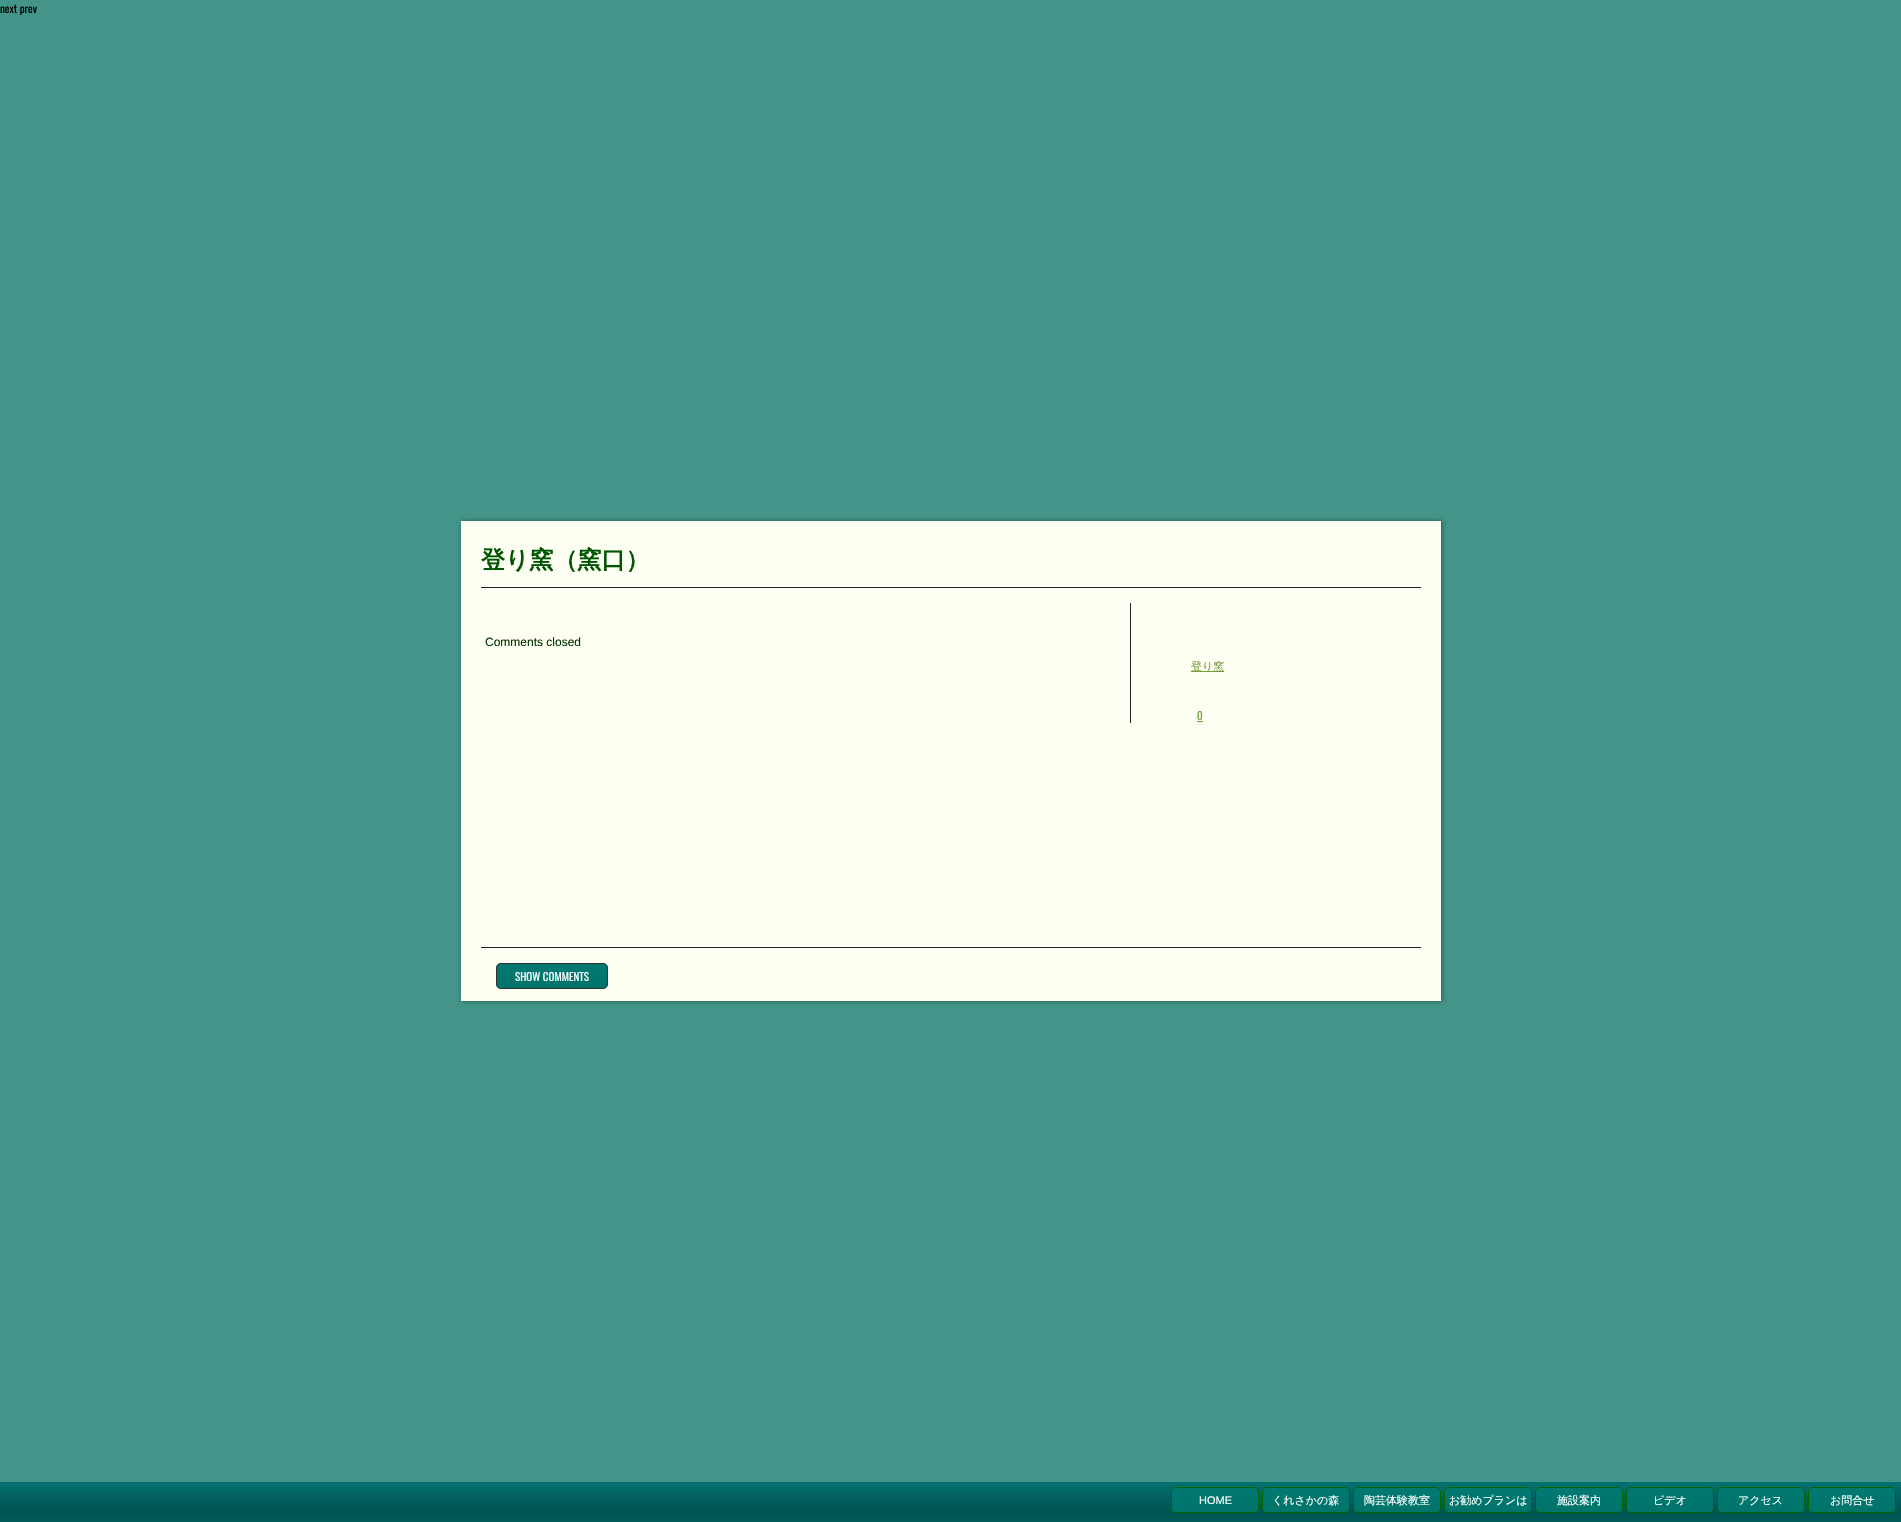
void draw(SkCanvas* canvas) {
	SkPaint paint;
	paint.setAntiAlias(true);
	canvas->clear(0xff429588);
	SkFont f1(fontMgr->matchFamilyStyle("Oswald", SkFontStyle::Normal()), 11);
	f1.setSubpixel(true);
	paint.setColor(0xff000000);
	canvas->drawString("next prev", 0, 13, f1, paint);
	paint.setColor(0x66000000);
	paint.setMaskFilter(SkMaskFilter::MakeBlur(kNormal_SkBlurStyle, 2.5));
	canvas->drawRect(SkRect::MakeXYWH(462, 521, 980, 480), paint);
	paint.setMaskFilter(nullptr);
	paint.setColor(0xfffefff3);
	canvas->drawRect(SkRect::MakeXYWH(461, 521, 980, 480), paint);
	paint.setColor(0xff222222);
	canvas->drawRect(SkRect::MakeXYWH(481, 587, 940, 1), paint);
	SkFont f2(fontMgr->matchFamilyStyle("WenQuanYi Zen Hei", SkFontStyle::Bold()), 24);
	f2.setSubpixel(true);
	paint.setColor(0xff005500);
	canvas->drawString("登り窯（窯口）", 481, 568, f2, paint);
	SkFont f3(fontMgr->matchFamilyStyle("Liberation Sans", SkFontStyle::Normal()), 12);
	f3.setSubpixel(true);
	paint.setColor(0xff003300);
	canvas->drawString("Comments closed", 485, 646, f3, paint);
	paint.setColor(0xff222222);
	canvas->drawRect(SkRect::MakeXYWH(1130, 603, 1, 120), paint);
	paint.setColor(0xff739b3a);
	canvas->drawRect(SkRect::MakeXYWH(1191, 671, 33, 1), paint);
	SkFont f4(fontMgr->matchFamilyStyle("WenQuanYi Zen Hei", SkFontStyle(500, SkFontStyle::kNormal_Width, SkFontStyle::kUpright_Slant)), 11);
	f4.setSubpixel(true);
	canvas->drawString("登り窯", 1191, 670, f4, paint);
	canvas->drawString("0", 1197, 720, f1, paint);
	canvas->drawRect(SkRect::MakeXYWH(1197, 721, 6, 1), paint);
	paint.setColor(0xff222222);
	canvas->drawRect(SkRect::MakeXYWH(481, 947, 940, 1), paint);
	canvas->drawImageRect(SkImages::DeferredFromEncodedData(SkData::MakeFromFileName("img1.png")), SkRect::MakeXYWH(496, 963, 112, 26), SkSamplingOptions());
	paint.setStroke(true);
	paint.setStrokeWidth(1);
	paint.setColor(0xff333333);
	canvas->drawRoundRect(SkRect::MakeXYWH(496.5, 963.5, 111, 25), 4.5, 4.5, paint);
	paint.setStroke(false);
	paint.setColor(0xffffffff);
	canvas->drawString("SHOW COMMENTS", 515, 981, f1, paint);
	canvas->drawImageRect(SkImages::DeferredFromEncodedData(SkData::MakeFromFileName("img2.png")), SkRect::MakeXYWH(0, 1482, 1901, 40), SkSamplingOptions());
	canvas->drawImageRect(SkImages::DeferredFromEncodedData(SkData::MakeFromFileName("img3.png")), SkRect::MakeXYWH(1171, 1487, 88, 26), SkSamplingOptions());
	paint.setStroke(true);
	paint.setColor(0xff006600);
	canvas->drawRoundRect(SkRect::MakeXYWH(1171.5, 1487.5, 87, 25), 4.5, 4.5, paint);
	SkFont f5(fontMgr->matchFamilyStyle("Liberation Sans", SkFontStyle::Normal()), 11);
	f5.setSubpixel(true);
	paint.setStroke(false);
	paint.setColor(0xffffffff);
	canvas->drawString("HOME", 1199, 1504, f5, paint);
	canvas->drawImageRect(SkImages::DeferredFromEncodedData(SkData::MakeFromFileName("img3.png")), SkRect::MakeXYWH(1262, 1487, 88, 26), SkSamplingOptions());
	paint.setStroke(true);
	paint.setColor(0xff006600);
	canvas->drawRoundRect(SkRect::MakeXYWH(1262.5, 1487.5, 87, 25), 4.5, 4.5, paint);
	paint.setStroke(false);
	paint.setColor(0xffffffff);
	canvas->drawString("くれさかの森", 1272, 1504, f4, paint);
	canvas->drawImageRect(SkImages::DeferredFromEncodedData(SkData::MakeFromFileName("img3.png")), SkRect::MakeXYWH(1353, 1487, 88, 26), SkSamplingOptions());
	paint.setStroke(true);
	paint.setColor(0xff006600);
	canvas->drawRoundRect(SkRect::MakeXYWH(1353.5, 1487.5, 87, 25), 4.5, 4.5, paint);
	paint.setStroke(false);
	paint.setColor(0xffffffff);
	canvas->drawString("陶芸体験教室", 1364, 1504, f4, paint);
	canvas->drawImageRect(SkImages::DeferredFromEncodedData(SkData::MakeFromFileName("img3.png")), SkRect::MakeXYWH(1444, 1487, 88, 26), SkSamplingOptions());
	paint.setStroke(true);
	paint.setColor(0xff006600);
	canvas->drawRoundRect(SkRect::MakeXYWH(1444.5, 1487.5, 87, 25), 4.5, 4.5, paint);
	paint.setStroke(false);
	paint.setColor(0xffffffff);
	canvas->drawString("お勧めプランは", 1449, 1504, f4, paint);
	canvas->drawImageRect(SkImages::DeferredFromEncodedData(SkData::MakeFromFileName("img3.png")), SkRect::MakeXYWH(1535, 1487, 88, 26), SkSamplingOptions());
	paint.setStroke(true);
	paint.setColor(0xff006600);
	canvas->drawRoundRect(SkRect::MakeXYWH(1535.5, 1487.5, 87, 25), 4.5, 4.5, paint);
	paint.setStroke(false);
	paint.setColor(0xffffffff);
	canvas->drawString("施設案内", 1557, 1504, f4, paint);
	canvas->drawImageRect(SkImages::DeferredFromEncodedData(SkData::MakeFromFileName("img4.png")), SkRect::MakeXYWH(1626, 1487, 88, 26), SkSamplingOptions());
	paint.setStroke(true);
	paint.setColor(0xff006600);
	canvas->drawRoundRect(SkRect::MakeXYWH(1626.5, 1487.5, 87, 25), 4.5, 4.5, paint);
	paint.setStroke(false);
	paint.setColor(0xffffffff);
	canvas->drawString("ビデオ", 1653, 1504, f4, paint);
	canvas->drawImageRect(SkImages::DeferredFromEncodedData(SkData::MakeFromFileName("img3.png")), SkRect::MakeXYWH(1717, 1487, 88, 26), SkSamplingOptions());
	paint.setStroke(true);
	paint.setColor(0xff006600);
	canvas->drawRoundRect(SkRect::MakeXYWH(1717.5, 1487.5, 87, 25), 4.5, 4.5, paint);
	paint.setStroke(false);
	paint.setColor(0xffffffff);
	canvas->drawString("アクセス", 1738, 1504, f4, paint);
	canvas->drawImageRect(SkImages::DeferredFromEncodedData(SkData::MakeFromFileName("img4.png")), SkRect::MakeXYWH(1808, 1487, 88, 26), SkSamplingOptions());
	paint.setStroke(true);
	paint.setColor(0xff006600);
	canvas->drawRoundRect(SkRect::MakeXYWH(1808.5, 1487.5, 87, 25), 4.5, 4.5, paint);
	paint.setStroke(false);
	paint.setColor(0xffffffff);
	canvas->drawString("お問合せ", 1830, 1504, f4, paint);
}
